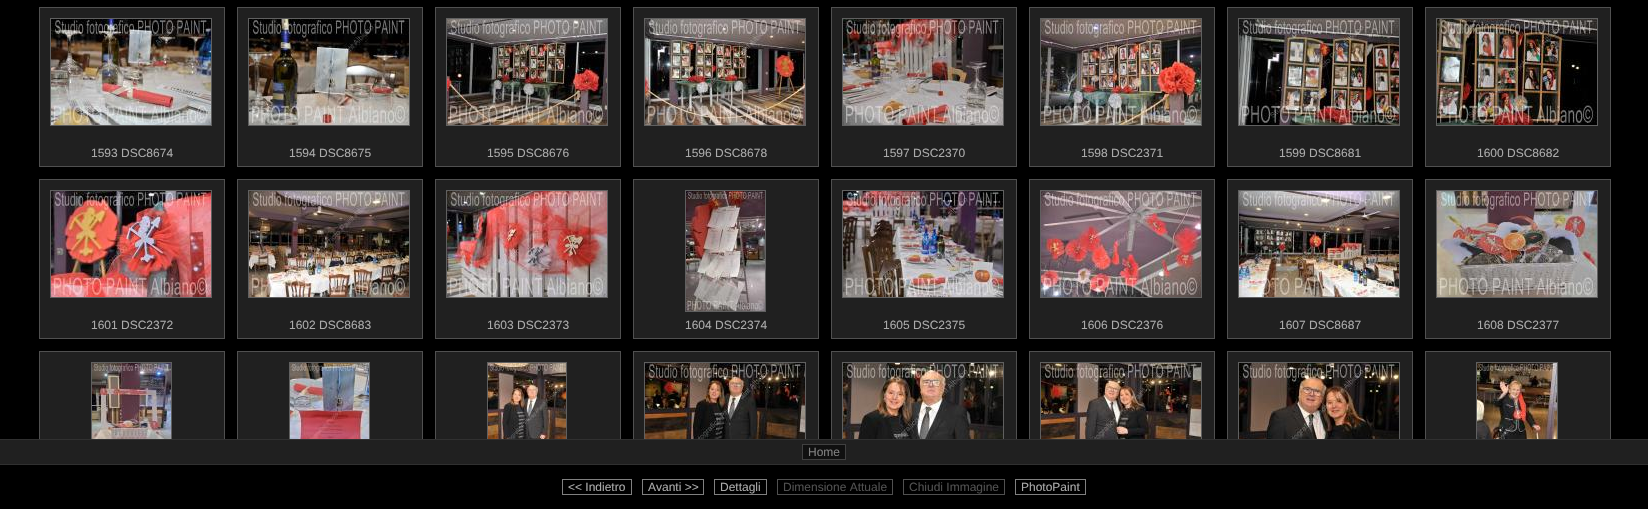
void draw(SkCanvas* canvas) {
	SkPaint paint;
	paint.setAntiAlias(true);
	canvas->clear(0xff000000);
	paint.setColor(0xff202020);
	canvas->drawRect(SkRect::MakeXYWH(39.5, 7.5, 185, 159), paint);
	paint.setStroke(true);
	paint.setStrokeWidth(1);
	paint.setColor(0xff505050);
	canvas->drawRect(SkRect::MakeXYWH(39.5, 7.5, 185, 159), paint);
	paint.setColor(0xff606060);
	canvas->drawRect(SkRect::MakeXYWH(50.5, 18.5, 161, 107), paint);
	canvas->drawImageRect(SkImages::DeferredFromEncodedData(SkData::MakeFromFileName("img1.png")), SkRect::MakeXYWH(51, 19, 160, 106), SkSamplingOptions());
	SkFont f1(fontMgr->matchFamilyStyle("Liberation Sans", SkFontStyle::Normal()), 12);
	f1.setSubpixel(true);
	paint.setStroke(false);
	paint.setColor(0xffaaaaaa);
	canvas->drawString("1593 DSC8674", 91, 157, f1, paint);
	paint.setColor(0xff202020);
	canvas->drawRect(SkRect::MakeXYWH(237.5, 7.5, 185, 159), paint);
	paint.setStroke(true);
	paint.setColor(0xff505050);
	canvas->drawRect(SkRect::MakeXYWH(237.5, 7.5, 185, 159), paint);
	paint.setColor(0xff606060);
	canvas->drawRect(SkRect::MakeXYWH(248.5, 18.5, 161, 107), paint);
	canvas->drawImageRect(SkImages::DeferredFromEncodedData(SkData::MakeFromFileName("img2.png")), SkRect::MakeXYWH(249, 19, 160, 106), SkSamplingOptions());
	paint.setStroke(false);
	paint.setColor(0xffaaaaaa);
	canvas->drawString("1594 DSC8675", 289, 157, f1, paint);
	paint.setColor(0xff202020);
	canvas->drawRect(SkRect::MakeXYWH(435.5, 7.5, 185, 159), paint);
	paint.setStroke(true);
	paint.setColor(0xff505050);
	canvas->drawRect(SkRect::MakeXYWH(435.5, 7.5, 185, 159), paint);
	paint.setColor(0xff606060);
	canvas->drawRect(SkRect::MakeXYWH(446.5, 18.5, 161, 107), paint);
	canvas->drawImageRect(SkImages::DeferredFromEncodedData(SkData::MakeFromFileName("img3.png")), SkRect::MakeXYWH(447, 19, 160, 106), SkSamplingOptions());
	paint.setStroke(false);
	paint.setColor(0xffaaaaaa);
	canvas->drawString("1595 DSC8676", 487, 157, f1, paint);
	paint.setColor(0xff202020);
	canvas->drawRect(SkRect::MakeXYWH(633.5, 7.5, 185, 159), paint);
	paint.setStroke(true);
	paint.setColor(0xff505050);
	canvas->drawRect(SkRect::MakeXYWH(633.5, 7.5, 185, 159), paint);
	paint.setColor(0xff606060);
	canvas->drawRect(SkRect::MakeXYWH(644.5, 18.5, 161, 107), paint);
	canvas->drawImageRect(SkImages::DeferredFromEncodedData(SkData::MakeFromFileName("img4.png")), SkRect::MakeXYWH(645, 19, 160, 106), SkSamplingOptions());
	paint.setStroke(false);
	paint.setColor(0xffaaaaaa);
	canvas->drawString("1596 DSC8678", 685, 157, f1, paint);
	paint.setColor(0xff202020);
	canvas->drawRect(SkRect::MakeXYWH(831.5, 7.5, 185, 159), paint);
	paint.setStroke(true);
	paint.setColor(0xff505050);
	canvas->drawRect(SkRect::MakeXYWH(831.5, 7.5, 185, 159), paint);
	paint.setColor(0xff606060);
	canvas->drawRect(SkRect::MakeXYWH(842.5, 18.5, 161, 107), paint);
	canvas->drawImageRect(SkImages::DeferredFromEncodedData(SkData::MakeFromFileName("img5.png")), SkRect::MakeXYWH(843, 19, 160, 106), SkSamplingOptions());
	paint.setStroke(false);
	paint.setColor(0xffaaaaaa);
	canvas->drawString("1597 DSC2370", 883, 157, f1, paint);
	paint.setColor(0xff202020);
	canvas->drawRect(SkRect::MakeXYWH(1029.5, 7.5, 185, 159), paint);
	paint.setStroke(true);
	paint.setColor(0xff505050);
	canvas->drawRect(SkRect::MakeXYWH(1029.5, 7.5, 185, 159), paint);
	paint.setColor(0xff606060);
	canvas->drawRect(SkRect::MakeXYWH(1040.5, 18.5, 161, 107), paint);
	canvas->drawImageRect(SkImages::DeferredFromEncodedData(SkData::MakeFromFileName("img6.png")), SkRect::MakeXYWH(1041, 19, 160, 106), SkSamplingOptions());
	paint.setStroke(false);
	paint.setColor(0xffaaaaaa);
	canvas->drawString("1598 DSC2371", 1081, 157, f1, paint);
	paint.setColor(0xff202020);
	canvas->drawRect(SkRect::MakeXYWH(1227.5, 7.5, 185, 159), paint);
	paint.setStroke(true);
	paint.setColor(0xff505050);
	canvas->drawRect(SkRect::MakeXYWH(1227.5, 7.5, 185, 159), paint);
	paint.setColor(0xff606060);
	canvas->drawRect(SkRect::MakeXYWH(1238.5, 18.5, 161, 107), paint);
	canvas->drawImageRect(SkImages::DeferredFromEncodedData(SkData::MakeFromFileName("img7.png")), SkRect::MakeXYWH(1239, 19, 160, 106), SkSamplingOptions());
	paint.setStroke(false);
	paint.setColor(0xffaaaaaa);
	canvas->drawString("1599 DSC8681", 1279, 157, f1, paint);
	paint.setColor(0xff202020);
	canvas->drawRect(SkRect::MakeXYWH(1425.5, 7.5, 185, 159), paint);
	paint.setStroke(true);
	paint.setColor(0xff505050);
	canvas->drawRect(SkRect::MakeXYWH(1425.5, 7.5, 185, 159), paint);
	paint.setColor(0xff606060);
	canvas->drawRect(SkRect::MakeXYWH(1436.5, 18.5, 161, 107), paint);
	canvas->drawImageRect(SkImages::DeferredFromEncodedData(SkData::MakeFromFileName("img8.png")), SkRect::MakeXYWH(1437, 19, 160, 106), SkSamplingOptions());
	paint.setStroke(false);
	paint.setColor(0xffaaaaaa);
	canvas->drawString("1600 DSC8682", 1477, 157, f1, paint);
	paint.setColor(0xff202020);
	canvas->drawRect(SkRect::MakeXYWH(39.5, 179.5, 185, 159), paint);
	paint.setStroke(true);
	paint.setColor(0xff505050);
	canvas->drawRect(SkRect::MakeXYWH(39.5, 179.5, 185, 159), paint);
	paint.setColor(0xff606060);
	canvas->drawRect(SkRect::MakeXYWH(50.5, 190.5, 161, 107), paint);
	canvas->drawImageRect(SkImages::DeferredFromEncodedData(SkData::MakeFromFileName("img9.png")), SkRect::MakeXYWH(51, 191, 160, 106), SkSamplingOptions());
	paint.setStroke(false);
	paint.setColor(0xffaaaaaa);
	canvas->drawString("1601 DSC2372", 91, 329, f1, paint);
	paint.setColor(0xff202020);
	canvas->drawRect(SkRect::MakeXYWH(237.5, 179.5, 185, 159), paint);
	paint.setStroke(true);
	paint.setColor(0xff505050);
	canvas->drawRect(SkRect::MakeXYWH(237.5, 179.5, 185, 159), paint);
	paint.setColor(0xff606060);
	canvas->drawRect(SkRect::MakeXYWH(248.5, 190.5, 161, 107), paint);
	canvas->drawImageRect(SkImages::DeferredFromEncodedData(SkData::MakeFromFileName("img10.png")), SkRect::MakeXYWH(249, 191, 160, 106), SkSamplingOptions());
	paint.setStroke(false);
	paint.setColor(0xffaaaaaa);
	canvas->drawString("1602 DSC8683", 289, 329, f1, paint);
	paint.setColor(0xff202020);
	canvas->drawRect(SkRect::MakeXYWH(435.5, 179.5, 185, 159), paint);
	paint.setStroke(true);
	paint.setColor(0xff505050);
	canvas->drawRect(SkRect::MakeXYWH(435.5, 179.5, 185, 159), paint);
	paint.setColor(0xff606060);
	canvas->drawRect(SkRect::MakeXYWH(446.5, 190.5, 161, 107), paint);
	canvas->drawImageRect(SkImages::DeferredFromEncodedData(SkData::MakeFromFileName("img11.png")), SkRect::MakeXYWH(447, 191, 160, 106), SkSamplingOptions());
	paint.setStroke(false);
	paint.setColor(0xffaaaaaa);
	canvas->drawString("1603 DSC2373", 487, 329, f1, paint);
	paint.setColor(0xff202020);
	canvas->drawRect(SkRect::MakeXYWH(633.5, 179.5, 185, 159), paint);
	paint.setStroke(true);
	paint.setColor(0xff505050);
	canvas->drawRect(SkRect::MakeXYWH(633.5, 179.5, 185, 159), paint);
	paint.setColor(0xff606060);
	canvas->drawRect(SkRect::MakeXYWH(685.5, 190.5, 80, 121), paint);
	canvas->drawImageRect(SkImages::DeferredFromEncodedData(SkData::MakeFromFileName("img12.png")), SkRect::MakeXYWH(686, 191, 79, 120), SkSamplingOptions());
	paint.setStroke(false);
	paint.setColor(0xffaaaaaa);
	canvas->drawString("1604 DSC2374", 685, 329, f1, paint);
	paint.setColor(0xff202020);
	canvas->drawRect(SkRect::MakeXYWH(831.5, 179.5, 185, 159), paint);
	paint.setStroke(true);
	paint.setColor(0xff505050);
	canvas->drawRect(SkRect::MakeXYWH(831.5, 179.5, 185, 159), paint);
	paint.setColor(0xff606060);
	canvas->drawRect(SkRect::MakeXYWH(842.5, 190.5, 161, 107), paint);
	canvas->drawImageRect(SkImages::DeferredFromEncodedData(SkData::MakeFromFileName("img13.png")), SkRect::MakeXYWH(843, 191, 160, 106), SkSamplingOptions());
	paint.setStroke(false);
	paint.setColor(0xffaaaaaa);
	canvas->drawString("1605 DSC2375", 883, 329, f1, paint);
	paint.setColor(0xff202020);
	canvas->drawRect(SkRect::MakeXYWH(1029.5, 179.5, 185, 159), paint);
	paint.setStroke(true);
	paint.setColor(0xff505050);
	canvas->drawRect(SkRect::MakeXYWH(1029.5, 179.5, 185, 159), paint);
	paint.setColor(0xff606060);
	canvas->drawRect(SkRect::MakeXYWH(1040.5, 190.5, 161, 107), paint);
	canvas->drawImageRect(SkImages::DeferredFromEncodedData(SkData::MakeFromFileName("img14.png")), SkRect::MakeXYWH(1041, 191, 160, 106), SkSamplingOptions());
	paint.setStroke(false);
	paint.setColor(0xffaaaaaa);
	canvas->drawString("1606 DSC2376", 1081, 329, f1, paint);
	paint.setColor(0xff202020);
	canvas->drawRect(SkRect::MakeXYWH(1227.5, 179.5, 185, 159), paint);
	paint.setStroke(true);
	paint.setColor(0xff505050);
	canvas->drawRect(SkRect::MakeXYWH(1227.5, 179.5, 185, 159), paint);
	paint.setColor(0xff606060);
	canvas->drawRect(SkRect::MakeXYWH(1238.5, 190.5, 161, 107), paint);
	canvas->drawImageRect(SkImages::DeferredFromEncodedData(SkData::MakeFromFileName("img15.png")), SkRect::MakeXYWH(1239, 191, 160, 106), SkSamplingOptions());
	paint.setStroke(false);
	paint.setColor(0xffaaaaaa);
	canvas->drawString("1607 DSC8687", 1279, 329, f1, paint);
	paint.setColor(0xff202020);
	canvas->drawRect(SkRect::MakeXYWH(1425.5, 179.5, 185, 159), paint);
	paint.setStroke(true);
	paint.setColor(0xff505050);
	canvas->drawRect(SkRect::MakeXYWH(1425.5, 179.5, 185, 159), paint);
	paint.setColor(0xff606060);
	canvas->drawRect(SkRect::MakeXYWH(1436.5, 190.5, 161, 107), paint);
	canvas->drawImageRect(SkImages::DeferredFromEncodedData(SkData::MakeFromFileName("img16.png")), SkRect::MakeXYWH(1437, 191, 160, 106), SkSamplingOptions());
	paint.setStroke(false);
	paint.setColor(0xffaaaaaa);
	canvas->drawString("1608 DSC2377", 1477, 329, f1, paint);
	paint.setColor(0xff202020);
	canvas->drawRect(SkRect::MakeXYWH(40, 352, 184, 87), paint);
	canvas->save();
	canvas->clipRect(SkRect::MakeXYWH(0, 0, 1648, 439));
	paint.setStroke(true);
	paint.setColor(0xff505050);
	canvas->drawRect(SkRect::MakeXYWH(39.5, 351.5, 185, 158), paint);
	paint.setColor(0xff606060);
	canvas->drawRect(SkRect::MakeXYWH(91.5, 362.5, 80, 121), paint);
	canvas->restore();
	canvas->drawImageRect(SkImages::DeferredFromEncodedData(SkData::MakeFromFileName("img17.png")), SkRect::MakeXYWH(92, 363, 79, 76), SkSamplingOptions());
	paint.setStroke(false);
	paint.setColor(0xff202020);
	canvas->drawRect(SkRect::MakeXYWH(238, 352, 184, 87), paint);
	canvas->save();
	canvas->clipRect(SkRect::MakeXYWH(0, 0, 1648, 439));
	paint.setStroke(true);
	paint.setColor(0xff505050);
	canvas->drawRect(SkRect::MakeXYWH(237.5, 351.5, 185, 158), paint);
	paint.setColor(0xff606060);
	canvas->drawRect(SkRect::MakeXYWH(289.5, 362.5, 80, 121), paint);
	canvas->restore();
	canvas->drawImageRect(SkImages::DeferredFromEncodedData(SkData::MakeFromFileName("img18.png")), SkRect::MakeXYWH(290, 363, 79, 76), SkSamplingOptions());
	paint.setStroke(false);
	paint.setColor(0xff202020);
	canvas->drawRect(SkRect::MakeXYWH(436, 352, 184, 87), paint);
	canvas->save();
	canvas->clipRect(SkRect::MakeXYWH(0, 0, 1648, 439));
	paint.setStroke(true);
	paint.setColor(0xff505050);
	canvas->drawRect(SkRect::MakeXYWH(435.5, 351.5, 185, 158), paint);
	paint.setColor(0xff606060);
	canvas->drawRect(SkRect::MakeXYWH(487.5, 362.5, 79, 121), paint);
	canvas->restore();
	canvas->drawImageRect(SkImages::DeferredFromEncodedData(SkData::MakeFromFileName("img19.png")), SkRect::MakeXYWH(488, 363, 78, 76), SkSamplingOptions());
	paint.setStroke(false);
	paint.setColor(0xff202020);
	canvas->drawRect(SkRect::MakeXYWH(634, 352, 184, 87), paint);
	canvas->save();
	canvas->clipRect(SkRect::MakeXYWH(0, 0, 1648, 439));
	paint.setStroke(true);
	paint.setColor(0xff505050);
	canvas->drawRect(SkRect::MakeXYWH(633.5, 351.5, 185, 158), paint);
	paint.setColor(0xff606060);
	canvas->drawRect(SkRect::MakeXYWH(644.5, 362.5, 161, 107), paint);
	canvas->restore();
	canvas->drawImageRect(SkImages::DeferredFromEncodedData(SkData::MakeFromFileName("img20.png")), SkRect::MakeXYWH(645, 363, 160, 76), SkSamplingOptions());
	paint.setStroke(false);
	paint.setColor(0xff202020);
	canvas->drawRect(SkRect::MakeXYWH(832, 352, 184, 87), paint);
	canvas->save();
	canvas->clipRect(SkRect::MakeXYWH(0, 0, 1648, 439));
	paint.setStroke(true);
	paint.setColor(0xff505050);
	canvas->drawRect(SkRect::MakeXYWH(831.5, 351.5, 185, 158), paint);
	paint.setColor(0xff606060);
	canvas->drawRect(SkRect::MakeXYWH(842.5, 362.5, 161, 107), paint);
	canvas->restore();
	canvas->drawImageRect(SkImages::DeferredFromEncodedData(SkData::MakeFromFileName("img21.png")), SkRect::MakeXYWH(843, 363, 160, 76), SkSamplingOptions());
	paint.setStroke(false);
	paint.setColor(0xff202020);
	canvas->drawRect(SkRect::MakeXYWH(1030, 352, 184, 87), paint);
	canvas->save();
	canvas->clipRect(SkRect::MakeXYWH(0, 0, 1648, 439));
	paint.setStroke(true);
	paint.setColor(0xff505050);
	canvas->drawRect(SkRect::MakeXYWH(1029.5, 351.5, 185, 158), paint);
	paint.setColor(0xff606060);
	canvas->drawRect(SkRect::MakeXYWH(1040.5, 362.5, 161, 107), paint);
	canvas->restore();
	canvas->drawImageRect(SkImages::DeferredFromEncodedData(SkData::MakeFromFileName("img22.png")), SkRect::MakeXYWH(1041, 363, 160, 76), SkSamplingOptions());
	paint.setStroke(false);
	paint.setColor(0xff202020);
	canvas->drawRect(SkRect::MakeXYWH(1228, 352, 184, 87), paint);
	canvas->save();
	canvas->clipRect(SkRect::MakeXYWH(0, 0, 1648, 439));
	paint.setStroke(true);
	paint.setColor(0xff505050);
	canvas->drawRect(SkRect::MakeXYWH(1227.5, 351.5, 185, 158), paint);
	paint.setColor(0xff606060);
	canvas->drawRect(SkRect::MakeXYWH(1238.5, 362.5, 161, 107), paint);
	canvas->restore();
	canvas->drawImageRect(SkImages::DeferredFromEncodedData(SkData::MakeFromFileName("img23.png")), SkRect::MakeXYWH(1239, 363, 160, 76), SkSamplingOptions());
	paint.setStroke(false);
	paint.setColor(0xff202020);
	canvas->drawRect(SkRect::MakeXYWH(1426, 352, 184, 87), paint);
	canvas->save();
	canvas->clipRect(SkRect::MakeXYWH(0, 0, 1648, 439));
	paint.setStroke(true);
	paint.setColor(0xff505050);
	canvas->drawRect(SkRect::MakeXYWH(1425.5, 351.5, 185, 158), paint);
	paint.setColor(0xff606060);
	canvas->drawRect(SkRect::MakeXYWH(1476.5, 362.5, 81, 121), paint);
	canvas->restore();
	canvas->drawImageRect(SkImages::DeferredFromEncodedData(SkData::MakeFromFileName("img24.png")), SkRect::MakeXYWH(1477, 363, 80, 76), SkSamplingOptions());
	paint.setStroke(false);
	paint.setColor(0xff202020);
	canvas->drawRect(SkRect::MakeXYWH(0, 440, 1648, 24), paint);
	paint.setColor(0xff303030);
	canvas->drawRect(SkRect::MakeXYWH(0, 439, 1648, 1), paint);
	paint.setColor(0xff101010);
	canvas->drawRect(SkRect::MakeXYWH(802.5, 444.5, 43, 15), paint);
	paint.setStroke(true);
	paint.setColor(0xff404040);
	canvas->drawRect(SkRect::MakeXYWH(802.5, 444.5, 43, 15), paint);
	paint.setStroke(false);
	paint.setColor(0xff808080);
	canvas->drawString("Home", 808, 456, f1, paint);
	paint.setColor(0xff303030);
	canvas->drawRect(SkRect::MakeXYWH(0, 464, 1648, 1), paint);
	paint.setStroke(true);
	paint.setColor(0xff808080);
	canvas->drawRect(SkRect::MakeXYWH(562.5, 479.5, 69, 15), paint);
	paint.setStroke(false);
	paint.setColor(0xffaaaaaa);
	canvas->drawString("<< Indietro", 568, 491, f1, paint);
	paint.setStroke(true);
	paint.setColor(0xff808080);
	canvas->drawRect(SkRect::MakeXYWH(642.5, 479.5, 61, 15), paint);
	paint.setStroke(false);
	paint.setColor(0xffaaaaaa);
	canvas->drawString("Avanti >>", 648, 491, f1, paint);
	paint.setStroke(true);
	paint.setColor(0xff808080);
	canvas->drawRect(SkRect::MakeXYWH(714.5, 479.5, 52, 15), paint);
	paint.setStroke(false);
	paint.setColor(0xffaaaaaa);
	canvas->drawString("Dettagli", 720, 491, f1, paint);
	paint.setStroke(true);
	paint.setColor(0xff505050);
	canvas->drawRect(SkRect::MakeXYWH(777.5, 479.5, 115, 15), paint);
	paint.setStroke(false);
	canvas->drawString("Dimensione Attuale", 783, 491, f1, paint);
	paint.setStroke(true);
	canvas->drawRect(SkRect::MakeXYWH(903.5, 479.5, 101, 15), paint);
	paint.setStroke(false);
	canvas->drawString("Chiudi Immagine", 909, 491, f1, paint);
	paint.setStroke(true);
	paint.setColor(0xff808080);
	canvas->drawRect(SkRect::MakeXYWH(1015.5, 479.5, 70, 15), paint);
	paint.setStroke(false);
	paint.setColor(0xffaaaaaa);
	canvas->drawString("PhotoPaint", 1021, 491, f1, paint);
}
